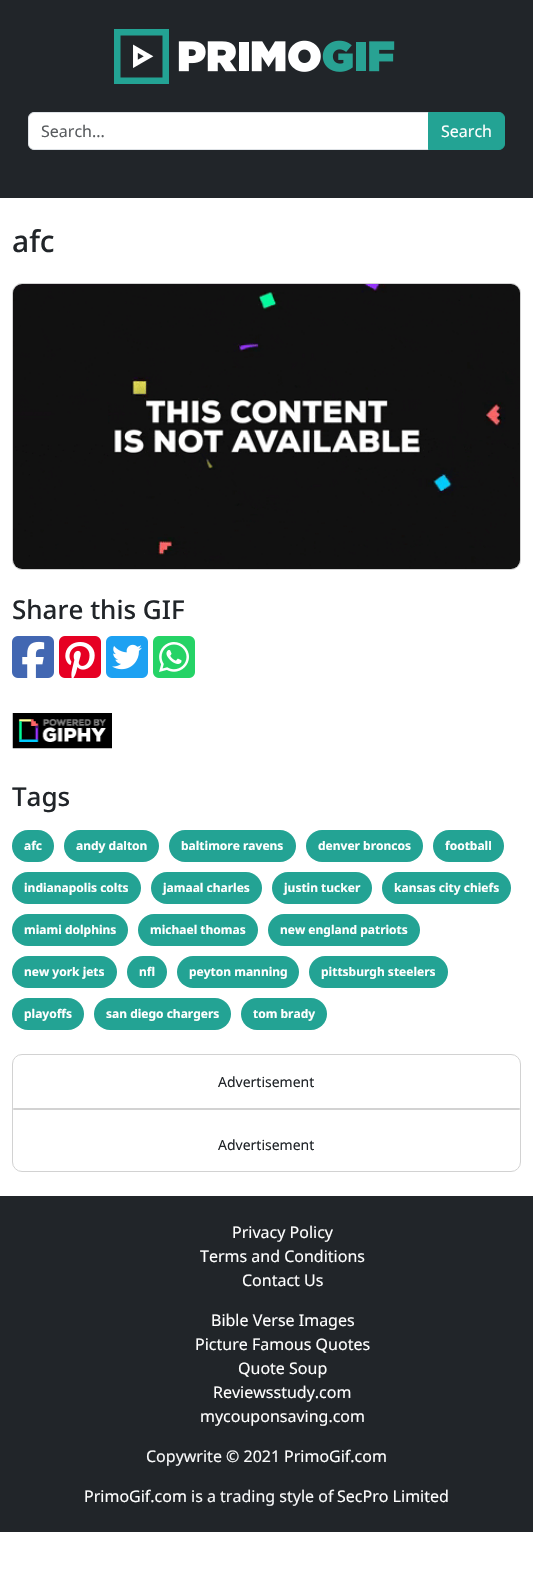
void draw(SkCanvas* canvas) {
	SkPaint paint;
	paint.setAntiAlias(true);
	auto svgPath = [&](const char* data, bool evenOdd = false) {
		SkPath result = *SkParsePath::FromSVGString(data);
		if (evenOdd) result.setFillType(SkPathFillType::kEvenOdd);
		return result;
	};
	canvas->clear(0xffffffff);
	paint.setColor(0xff212529);
	canvas->drawRect(SkRect::MakeXYWH(0, 0, 533, 198), paint);
	canvas->drawImageRect(SkImages::DeferredFromEncodedData(SkData::MakeFromFileName("img1.png")), SkRect::MakeXYWH(114, 29, 281, 55), SkSamplingOptions());
	paint.setColor(0xffffffff);
	canvas->drawPath(svgPath("M34 112.5H428.5V149.5H34C31 149.5 28.5 147 28.5 144V118C28.5 115 31 112.5 34 112.5Z"), paint);
	paint.setStroke(true);
	paint.setStrokeWidth(1);
	paint.setColor(0xffdee2e6);
	canvas->drawPath(svgPath("M34 112.5H428.5V149.5H34C31 149.5 28.5 147 28.5 144V118C28.5 115 31 112.5 34 112.5Z"), paint);
	SkFont f1(fontMgr->matchFamilyStyle("Noto Sans", SkFontStyle::Normal()), 16);
	f1.setSubpixel(true);
	paint.setStroke(false);
	paint.setColor(0xff595c5f);
	canvas->drawString("Search...", 41, 137, f1, paint);
	paint.setColor(0xff23a394);
	canvas->drawPath(svgPath("M428.5 112.5H499C502 112.5 504.5 115 504.5 118V144C504.5 147 502 149.5 499 149.5H428.5Z"), paint);
	paint.setStroke(true);
	canvas->drawPath(svgPath("M428.5 112.5H499C502 112.5 504.5 115 504.5 118V144C504.5 147 502 149.5 499 149.5H428.5Z"), paint);
	paint.setStroke(false);
	paint.setColor(0xffffffff);
	canvas->drawString("Search", 441, 137, f1, paint);
	SkFont f2(fontMgr->matchFamilyStyle("Noto Sans", SkFontStyle(500, SkFontStyle::kNormal_Width, SkFontStyle::kUpright_Slant)), 30);
	f2.setSubpixel(true);
	paint.setColor(0xff212529);
	canvas->drawString("afc", 12, 252, f2, paint);
	paint.setStroke(true);
	paint.setColor(0xffd2d2d2);
	canvas->drawRoundRect(SkRect::MakeXYWH(12.5, 283.5, 508, 286), 9.5, 9.5, paint);
	canvas->drawImageRect(SkImages::DeferredFromEncodedData(SkData::MakeFromFileName("img2.png")), SkRect::MakeXYWH(13, 284, 507, 285), SkSamplingOptions());
	SkFont f3(fontMgr->matchFamilyStyle("Noto Sans", SkFontStyle(500, SkFontStyle::kNormal_Width, SkFontStyle::kUpright_Slant)), 26);
	f3.setSubpixel(true);
	paint.setStroke(false);
	paint.setColor(0xff212529);
	canvas->drawString("Share this GIF", 12, 619, f3, paint);
	canvas->drawImageRect(SkImages::DeferredFromEncodedData(SkData::MakeFromFileName("img3.png")), SkRect::MakeXYWH(12, 636, 42, 42), SkSamplingOptions());
	canvas->drawImageRect(SkImages::DeferredFromEncodedData(SkData::MakeFromFileName("img4.png")), SkRect::MakeXYWH(59, 636, 42, 42), SkSamplingOptions());
	canvas->drawImageRect(SkImages::DeferredFromEncodedData(SkData::MakeFromFileName("img5.png")), SkRect::MakeXYWH(106, 636, 42, 42), SkSamplingOptions());
	canvas->drawImageRect(SkImages::DeferredFromEncodedData(SkData::MakeFromFileName("img6.png")), SkRect::MakeXYWH(153, 636, 42, 42), SkSamplingOptions());
	canvas->drawImageRect(SkImages::DeferredFromEncodedData(SkData::MakeFromFileName("img7.png")), SkRect::MakeXYWH(12, 713, 100, 36), SkSamplingOptions());
	canvas->drawString("Tags", 12, 806, f3, paint);
	paint.setColor(0xff23a394);
	canvas->drawRoundRect(SkRect::MakeXYWH(12, 830, 42, 32), 16, 16, paint);
	SkFont f4(fontMgr->matchFamilyStyle("Noto Sans", SkFontStyle::Bold()), 12);
	f4.setSubpixel(true);
	paint.setColor(0xffffffff);
	canvas->drawString("afc", 24, 850, f4, paint);
	paint.setColor(0xff23a394);
	canvas->drawRoundRect(SkRect::MakeXYWH(64, 830, 95, 32), 16, 16, paint);
	paint.setColor(0xffffffff);
	canvas->drawString("andy dalton", 76, 850, f4, paint);
	paint.setColor(0xff23a394);
	canvas->drawRoundRect(SkRect::MakeXYWH(169, 830, 127, 32), 16, 16, paint);
	paint.setColor(0xffffffff);
	canvas->drawString("baltimore ravens", 181, 850, f4, paint);
	paint.setColor(0xff23a394);
	canvas->drawRoundRect(SkRect::MakeXYWH(306, 830, 117, 32), 16, 16, paint);
	paint.setColor(0xffffffff);
	canvas->drawString("denver broncos", 318, 850, f4, paint);
	paint.setColor(0xff23a394);
	canvas->drawRoundRect(SkRect::MakeXYWH(433, 830, 71, 32), 16, 16, paint);
	paint.setColor(0xffffffff);
	canvas->drawString("football", 445, 850, f4, paint);
	paint.setColor(0xff23a394);
	canvas->drawRoundRect(SkRect::MakeXYWH(12, 872, 129, 32), 16, 16, paint);
	paint.setColor(0xffffffff);
	canvas->drawString("indianapolis colts", 24, 892, f4, paint);
	paint.setColor(0xff23a394);
	canvas->drawRoundRect(SkRect::MakeXYWH(151, 872, 111, 32), 16, 16, paint);
	paint.setColor(0xffffffff);
	canvas->drawString("jamaal charles", 163, 892, f4, paint);
	paint.setColor(0xff23a394);
	canvas->drawRoundRect(SkRect::MakeXYWH(272, 872, 100, 32), 16, 16, paint);
	paint.setColor(0xffffffff);
	canvas->drawString("justin tucker", 284, 892, f4, paint);
	paint.setColor(0xff23a394);
	canvas->drawRoundRect(SkRect::MakeXYWH(382, 872, 129, 32), 16, 16, paint);
	paint.setColor(0xffffffff);
	canvas->drawString("kansas city chiefs", 394, 892, f4, paint);
	paint.setColor(0xff23a394);
	canvas->drawRoundRect(SkRect::MakeXYWH(12, 914, 116, 32), 16, 16, paint);
	paint.setColor(0xffffffff);
	canvas->drawString("miami dolphins", 24, 934, f4, paint);
	paint.setColor(0xff23a394);
	canvas->drawRoundRect(SkRect::MakeXYWH(138, 914, 120, 32), 16, 16, paint);
	paint.setColor(0xffffffff);
	canvas->drawString("michael thomas", 150, 934, f4, paint);
	paint.setColor(0xff23a394);
	canvas->drawRoundRect(SkRect::MakeXYWH(268, 914, 152, 32), 16, 16, paint);
	paint.setColor(0xffffffff);
	canvas->drawString("new england patriots", 280, 934, f4, paint);
	paint.setColor(0xff23a394);
	canvas->drawRoundRect(SkRect::MakeXYWH(12, 956, 105, 32), 16, 16, paint);
	paint.setColor(0xffffffff);
	canvas->drawString("new york jets", 24, 976, f4, paint);
	paint.setColor(0xff23a394);
	canvas->drawRoundRect(SkRect::MakeXYWH(127, 956, 40, 32), 16, 16, paint);
	paint.setColor(0xffffffff);
	canvas->drawString("nfl", 139, 976, f4, paint);
	paint.setColor(0xff23a394);
	canvas->drawRoundRect(SkRect::MakeXYWH(177, 956, 122, 32), 16, 16, paint);
	paint.setColor(0xffffffff);
	canvas->drawString("peyton manning", 189, 976, f4, paint);
	paint.setColor(0xff23a394);
	canvas->drawRoundRect(SkRect::MakeXYWH(309, 956, 139, 32), 16, 16, paint);
	paint.setColor(0xffffffff);
	canvas->drawString("pittsburgh steelers", 321, 976, f4, paint);
	paint.setColor(0xff23a394);
	canvas->drawRoundRect(SkRect::MakeXYWH(12, 998, 72, 32), 16, 16, paint);
	paint.setColor(0xffffffff);
	canvas->drawString("playoffs", 24, 1018, f4, paint);
	paint.setColor(0xff23a394);
	canvas->drawRoundRect(SkRect::MakeXYWH(94, 998, 137, 32), 16, 16, paint);
	paint.setColor(0xffffffff);
	canvas->drawString("san diego chargers", 106, 1018, f4, paint);
	paint.setColor(0xff23a394);
	canvas->drawRoundRect(SkRect::MakeXYWH(241, 998, 86, 32), 16, 16, paint);
	paint.setColor(0xffffffff);
	canvas->drawString("tom brady", 253, 1018, f4, paint);
	paint.setStroke(true);
	paint.setColor(0xffd2d2d2);
	canvas->drawRoundRect(SkRect::MakeXYWH(12.5, 1054.5, 508, 117), 9.5, 9.5, paint);
	SkFont f5(fontMgr->matchFamilyStyle("Noto Sans", SkFontStyle::Normal()), 14);
	f5.setSubpixel(true);
	paint.setStroke(false);
	paint.setColor(0xff212529);
	canvas->drawString("Advertisement", 218, 1087, f5, paint);
	paint.setColor(0xffd2d2d2);
	canvas->drawRoundRect(SkRect::MakeXYWH(13, 1108, 507, 2), 1, 1, paint);
	paint.setColor(0xff212529);
	canvas->drawString("Advertisement", 218, 1150, f5, paint);
	canvas->drawRect(SkRect::MakeXYWH(0, 1196, 533, 336), paint);
	paint.setColor(0xffffffff);
	canvas->drawString("Privacy Policy", 232, 1238, f1, paint);
	canvas->drawString("Terms and Conditions", 200, 1262, f1, paint);
	canvas->drawString("Contact Us", 242, 1286, f1, paint);
	canvas->drawString("Bible Verse Images", 211, 1326, f1, paint);
	canvas->drawString("Picture Famous Quotes", 195, 1350, f1, paint);
	canvas->drawString("Quote Soup", 238, 1374, f1, paint);
	canvas->drawString("Reviewsstudy.com", 213, 1398, f1, paint);
	canvas->drawString("mycouponsaving.com", 200, 1422, f1, paint);
	paint.setColor(0xfff8f9fa);
	canvas->drawString("Copywrite © 2021", 146, 1462, f1, paint);
	paint.setColor(0xffffffff);
	canvas->drawString("PrimoGif.com", 284, 1462, f1, paint);
	canvas->drawString("PrimoGif.com", 84, 1502, f1, paint);
	paint.setColor(0xfff8f9fa);
	canvas->drawString("is a trading style of", 191, 1502, f1, paint);
	paint.setColor(0xffffffff);
	canvas->drawString("SecPro Limited", 337, 1502, f1, paint);
}
